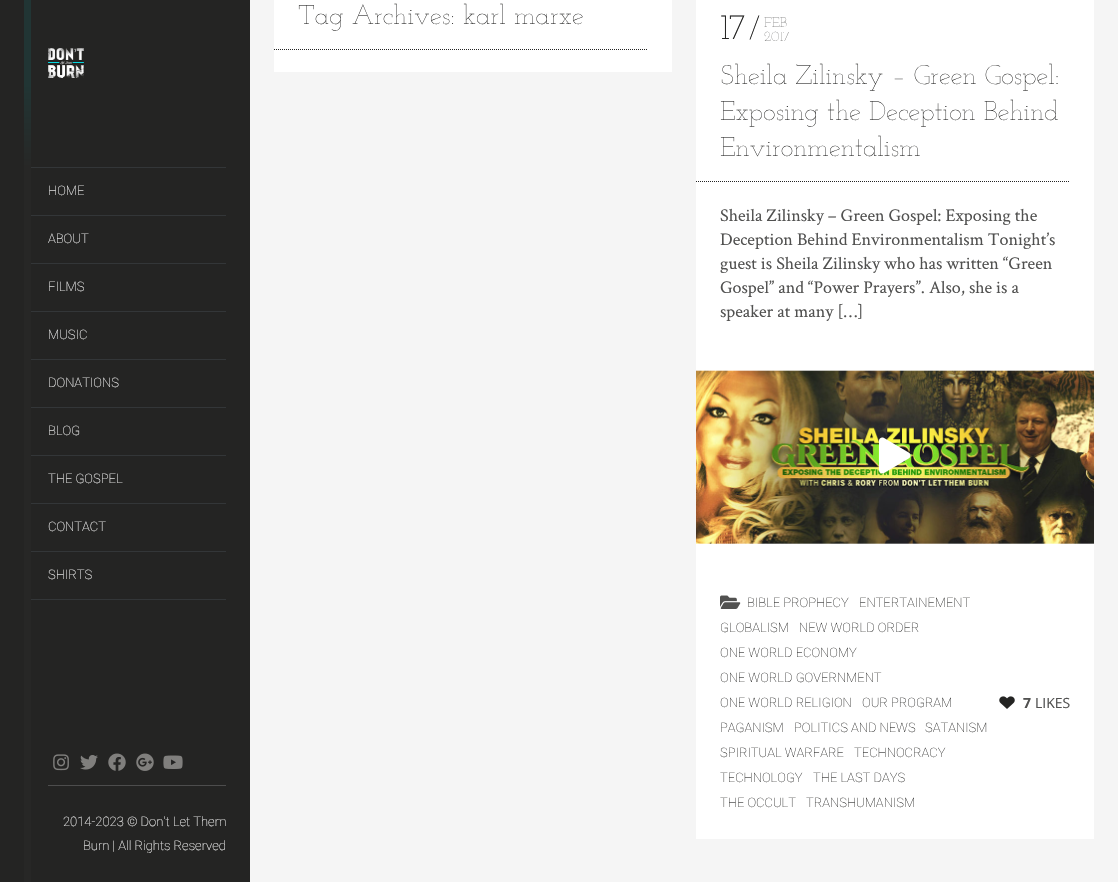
void draw(SkCanvas* canvas) {
	SkPaint paint;
	paint.setAntiAlias(true);
	auto svgPath = [&](const char* data, bool evenOdd = false) {
		SkPath result = *SkParsePath::FromSVGString(data);
		if (evenOdd) result.setFillType(SkPathFillType::kEvenOdd);
		return result;
	};
	canvas->clear(0xfff5f5f5);
	paint.setColor(0xff242423);
	canvas->drawRect(SkRect::MakeXYWH(0, 0, 250, 882), paint);
	paint.setColor(0xff333638);
	canvas->drawRect(SkRect::MakeXYWH(24, 215, 202, 1), paint);
	canvas->drawRect(SkRect::MakeXYWH(24, 263, 202, 1), paint);
	canvas->drawRect(SkRect::MakeXYWH(24, 311, 202, 1), paint);
	canvas->drawRect(SkRect::MakeXYWH(24, 359, 202, 1), paint);
	canvas->drawRect(SkRect::MakeXYWH(24, 407, 202, 1), paint);
	canvas->drawRect(SkRect::MakeXYWH(24, 455, 202, 1), paint);
	canvas->drawRect(SkRect::MakeXYWH(24, 503, 202, 1), paint);
	canvas->drawRect(SkRect::MakeXYWH(24, 551, 202, 1), paint);
	canvas->drawRect(SkRect::MakeXYWH(24, 599, 202, 1), paint);
	paint.setColor(0xff272726);
	canvas->drawRect(SkRect::MakeXYWH(24, 168, 7, 714), paint);
	paint.setColor(0xff333638);
	canvas->drawRect(SkRect::MakeXYWH(24, 167, 202, 1), paint);
	{
		const SkColor colors[] = {0xff213534, 0xff272726};
		const float stops[] = {0.5, 1};
		const SkPoint ends[] = {{24, 0}, {25, 168}};
		paint.setShader(SkGradientShader::MakeLinear(ends, colors, stops, 2, SkTileMode::kClamp));
		paint.setAlpha(255);
	}
	canvas->drawRect(SkRect::MakeXYWH(24, 0, 7, 168), paint);
	canvas->drawImageRect(SkImages::DeferredFromEncodedData(SkData::MakeFromFileName("img1.png")), SkRect::MakeXYWH(48, 48, 36, 30), SkSamplingOptions());
	SkFont f1(fontMgr->matchFamilyStyle("Roboto", SkFontStyle(100, SkFontStyle::kNormal_Width, SkFontStyle::kUpright_Slant)), 13);
	f1.setSubpixel(true);
	paint.setShader(nullptr);
	paint.setColor(0xffffffff);
	canvas->drawString("HOME", 48, 195, f1, paint);
	canvas->drawString("ABOUT", 48, 243, f1, paint);
	canvas->drawString("FILMS", 48, 291, f1, paint);
	canvas->drawString("MUSIC", 48, 339, f1, paint);
	canvas->drawString("DONATIONS", 48, 387, f1, paint);
	canvas->drawString("BLOG", 48, 435, f1, paint);
	canvas->drawString("THE GOSPEL", 48, 483, f1, paint);
	canvas->drawString("CONTACT", 48, 531, f1, paint);
	canvas->drawString("SHIRTS", 48, 579, f1, paint);
	paint.setColor(0xff4d4d4d);
	canvas->drawRect(SkRect::MakeXYWH(48, 785, 178, 1), paint);
	canvas->drawImageRect(SkImages::DeferredFromEncodedData(SkData::MakeFromFileName("img2.png")), SkRect::MakeXYWH(53, 754, 16, 17), SkSamplingOptions());
	canvas->drawImageRect(SkImages::DeferredFromEncodedData(SkData::MakeFromFileName("img3.png")), SkRect::MakeXYWH(80, 755, 18, 15), SkSamplingOptions());
	canvas->drawImageRect(SkImages::DeferredFromEncodedData(SkData::MakeFromFileName("img4.png")), SkRect::MakeXYWH(108, 753, 18, 18), SkSamplingOptions());
	canvas->drawImageRect(SkImages::DeferredFromEncodedData(SkData::MakeFromFileName("img5.png")), SkRect::MakeXYWH(136, 753, 18, 18), SkSamplingOptions());
	canvas->drawImageRect(SkImages::DeferredFromEncodedData(SkData::MakeFromFileName("img6.png")), SkRect::MakeXYWH(163, 755, 20, 14), SkSamplingOptions());
	paint.setColor(0xffffffff);
	canvas->drawString("2014-2023 © Don't Let Them", 63, 826, f1, paint);
	canvas->drawString("Burn | All Rights Reserved", 83, 850, f1, paint);
	canvas->drawRect(SkRect::MakeXYWH(274, 0, 398, 72), paint);
	SkFont f2(fontMgr->matchFamilyStyle("Josefin Slab", SkFontStyle(100, SkFontStyle::kNormal_Width, SkFontStyle::kUpright_Slant)), 27);
	f2.setSubpixel(true);
	paint.setColor(0xff242423);
	canvas->drawString("Tag Archives: karl marxe", 298, 24, f2, paint);
	paint.setStroke(true);
	paint.setStrokeWidth(1);
	paint.setPathEffect(SkDashPathEffect::Make({{1, 1}}, 0));
	canvas->drawPath(svgPath("M274 49.5H648"), paint);
	paint.setPathEffect(nullptr);
	paint.setStroke(false);
	paint.setColor(0xffffffff);
	canvas->drawRect(SkRect::MakeXYWH(696, 0, 398, 839), paint);
	SkFont f3(fontMgr->matchFamilyStyle("Josefin Slab", SkFontStyle(300, SkFontStyle::kNormal_Width, SkFontStyle::kUpright_Slant)), 36);
	f3.setSubpixel(true);
	paint.setColor(0xff242423);
	canvas->drawString("17", 720, 39, f3, paint);
	SkFont f4(fontMgr->matchFamilyStyle("Josefin Slab", SkFontStyle(300, SkFontStyle::kNormal_Width, SkFontStyle::kUpright_Slant)), 32);
	f4.setSubpixel(true);
	canvas->drawString("/", 749, 39, f4, paint);
	SkFont f5(fontMgr->matchFamilyStyle("Josefin Slab", SkFontStyle(100, SkFontStyle::kNormal_Width, SkFontStyle::kUpright_Slant)), 14);
	f5.setSubpixel(true);
	paint.setColor(0xff515150);
	canvas->drawString("FEB", 764, 27, f5, paint);
	canvas->drawString("2017", 764, 41, f5, paint);
	paint.setColor(0xff242423);
	canvas->drawString("Sheila Zilinsky – Green Gospel:", 720, 84, f2, paint);
	canvas->drawString("Exposing the Deception Behind", 720, 120, f2, paint);
	canvas->drawString("Environmentalism", 720, 156, f2, paint);
	paint.setStroke(true);
	paint.setPathEffect(SkDashPathEffect::Make({{1, 1}}, 0));
	canvas->drawPath(svgPath("M696 181.5H1070"), paint);
	paint.setPathEffect(nullptr);
	SkFont f6(fontMgr->matchFamilyStyle("Crimson Text", SkFontStyle::Normal()), 18);
	f6.setSubpixel(true);
	paint.setStroke(false);
	paint.setColor(0xff515150);
	canvas->drawString("Sheila Zilinsky – Green Gospel: Exposing the", 720, 221, f6, paint);
	canvas->drawString("Deception Behind Environmentalism Tonight’s", 720, 245, f6, paint);
	canvas->drawString("guest is Sheila Zilinsky who has written “Green", 720, 269, f6, paint);
	canvas->drawString("Gospel” and “Power Prayers”. Also, she is a", 720, 293, f6, paint);
	canvas->drawString("speaker at many […]", 720, 317, f6, paint);
	canvas->drawImageRect(SkImages::DeferredFromEncodedData(SkData::MakeFromFileName("img7.png")), SkRect::MakeXYWH(696, 370, 398, 174), SkSamplingOptions());
	canvas->drawImageRect(SkImages::DeferredFromEncodedData(SkData::MakeFromFileName("img8.png")), SkRect::MakeXYWH(879, 437, 32, 37), SkSamplingOptions());
	canvas->drawImageRect(SkImages::DeferredFromEncodedData(SkData::MakeFromFileName("img9.png")), SkRect::MakeXYWH(720, 595, 21, 14), SkSamplingOptions());
	paint.setColor(0xff242423);
	canvas->drawString("BIBLE PROPHECY", 747, 607, f1, paint);
	canvas->drawString("ENTERTAINEMENT", 859, 607, f1, paint);
	canvas->drawString("GLOBALISM", 720, 632, f1, paint);
	canvas->drawString("NEW WORLD ORDER", 799, 632, f1, paint);
	canvas->drawString("ONE WORLD ECONOMY", 720, 657, f1, paint);
	canvas->drawString("ONE WORLD GOVERNMENT", 720, 682, f1, paint);
	canvas->drawString("ONE WORLD RELIGION", 720, 707, f1, paint);
	canvas->drawString("OUR PROGRAM", 862, 707, f1, paint);
	canvas->drawString("PAGANISM", 720, 732, f1, paint);
	canvas->drawString("POLITICS AND NEWS", 794, 732, f1, paint);
	canvas->drawString("SATANISM", 925, 732, f1, paint);
	canvas->drawString("SPIRITUAL WARFARE", 720, 757, f1, paint);
	canvas->drawString("TECHNOCRACY", 854, 757, f1, paint);
	canvas->drawString("TECHNOLOGY", 720, 782, f1, paint);
	canvas->drawString("THE LAST DAYS", 813, 782, f1, paint);
	canvas->drawString("THE OCCULT", 720, 807, f1, paint);
	canvas->drawString("TRANSHUMANISM", 806, 807, f1, paint);
	canvas->drawImageRect(SkImages::DeferredFromEncodedData(SkData::MakeFromFileName("img10.png")), SkRect::MakeXYWH(999, 696, 16, 13), SkSamplingOptions());
	SkFont f7(fontMgr->matchFamilyStyle("Open Sans", SkFontStyle::Bold()), 14);
	f7.setSubpixel(true);
	paint.setColor(0xff515150);
	canvas->drawString("7", 1023, 708, f7, paint);
	SkFont f8(fontMgr->matchFamilyStyle("Open Sans", SkFontStyle::Normal()), 14);
	f8.setSubpixel(true);
	canvas->drawString("LIKES", 1035, 708, f8, paint);
}
